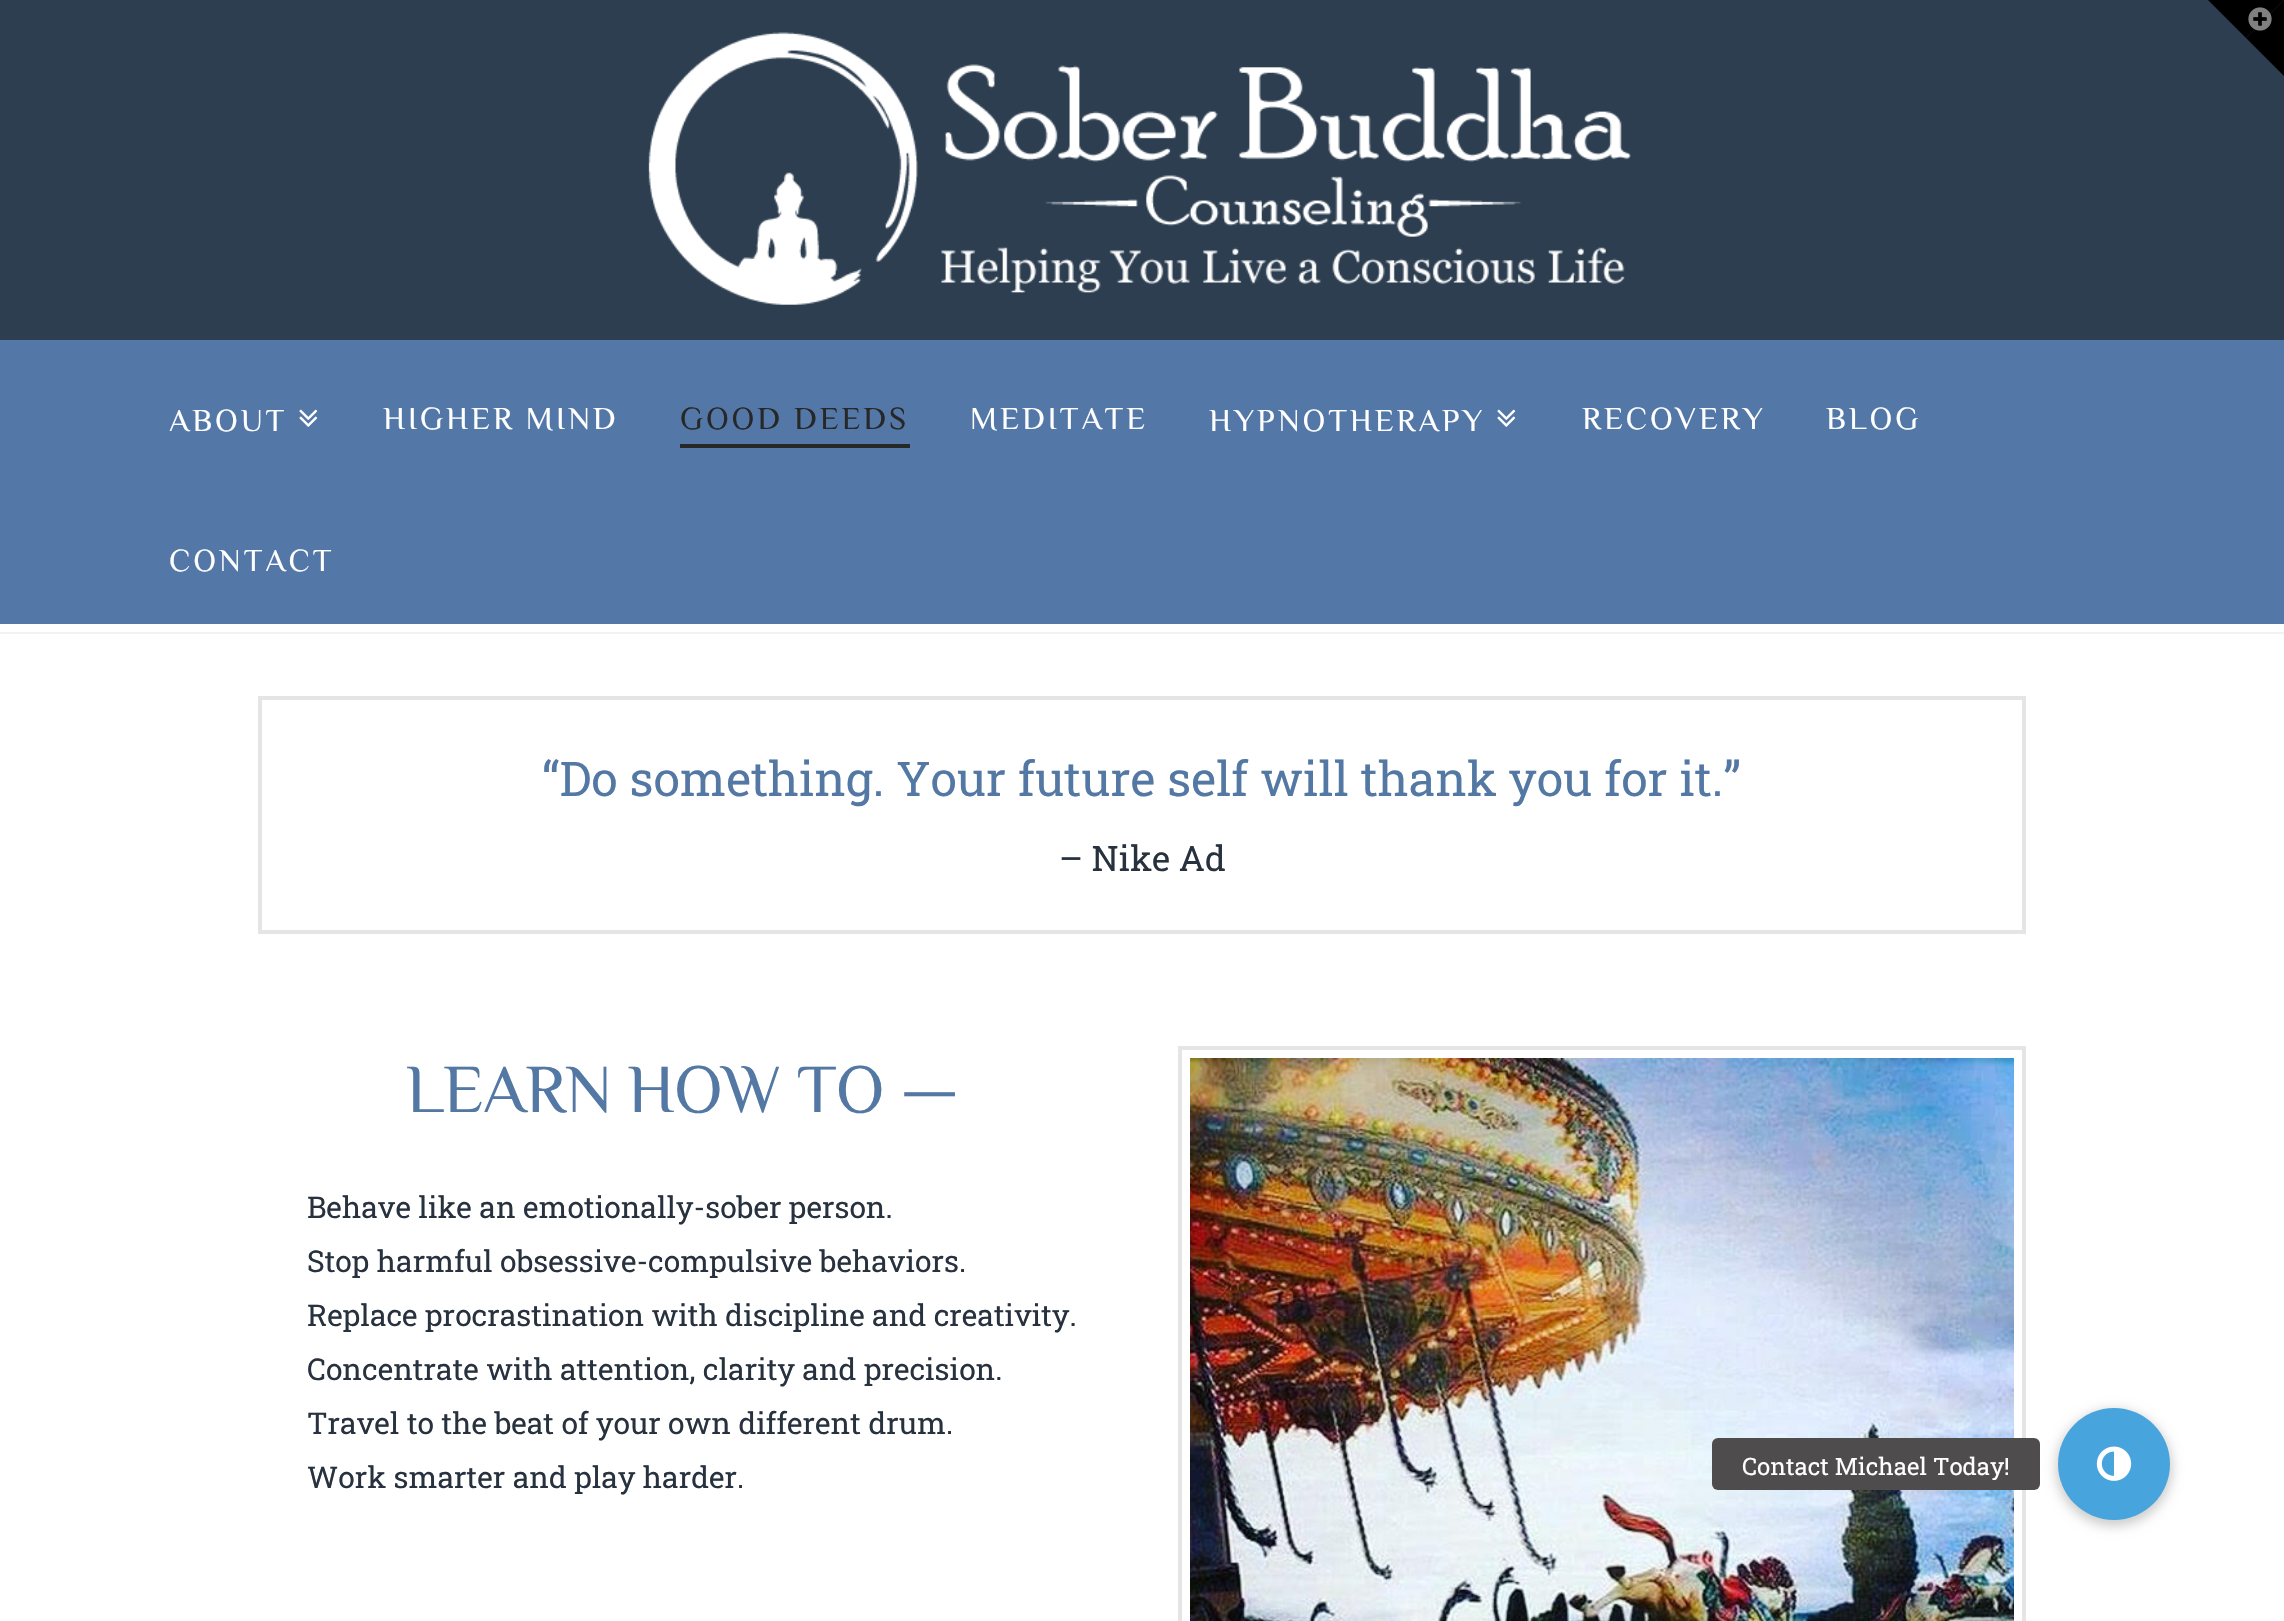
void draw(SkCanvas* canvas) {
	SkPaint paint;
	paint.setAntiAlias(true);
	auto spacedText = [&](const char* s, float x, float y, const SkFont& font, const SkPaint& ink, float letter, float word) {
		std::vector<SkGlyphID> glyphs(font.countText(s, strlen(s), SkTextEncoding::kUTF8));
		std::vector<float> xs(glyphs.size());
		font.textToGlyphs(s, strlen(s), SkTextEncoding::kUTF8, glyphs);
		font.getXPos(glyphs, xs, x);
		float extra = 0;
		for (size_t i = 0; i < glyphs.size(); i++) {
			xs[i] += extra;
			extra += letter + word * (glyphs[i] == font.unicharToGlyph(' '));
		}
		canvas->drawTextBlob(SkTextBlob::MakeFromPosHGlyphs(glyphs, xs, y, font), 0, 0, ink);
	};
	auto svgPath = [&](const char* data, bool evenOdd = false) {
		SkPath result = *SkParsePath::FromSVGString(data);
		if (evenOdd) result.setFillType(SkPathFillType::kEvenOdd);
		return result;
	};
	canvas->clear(0xffffffff);
	paint.setColor(0xff2c3e50);
	canvas->drawRect(SkRect::MakeXYWH(0, 0, 2284, 340), paint);
	paint.setColor(0xff000000);
	canvas->drawPath(svgPath("M2208 0H2284L2246 38Z"), paint);
	canvas->drawPath(svgPath("M2284 0V76L2246 38Z"), paint);
	canvas->drawImageRect(SkImages::DeferredFromEncodedData(SkData::MakeFromFileName("img1.png")), SkRect::MakeXYWH(2248, 7, 24, 24), SkSamplingOptions());
	canvas->drawImageRect(SkImages::DeferredFromEncodedData(SkData::MakeFromFileName("img2.png")), SkRect::MakeXYWH(648, 32, 983, 273), SkSamplingOptions());
	paint.setColor(0xff5377a6);
	canvas->drawRect(SkRect::MakeXYWH(0, 340, 2284, 284), paint);
	SkFont f1(fontMgr->matchFamilyStyle("Philosopher", SkFontStyle::Normal()), 32);
	f1.setSubpixel(true);
	paint.setColor(0xffffffff);
	spacedText("ABOUT", 169, 431, f1, paint, 2.9, 0);
	canvas->drawImageRect(SkImages::DeferredFromEncodedData(SkData::MakeFromFileName("img3.png")), SkRect::MakeXYWH(299, 409, 19, 18), SkSamplingOptions());
	spacedText("HIGHER MIND", 383, 429, f1, paint, 2.9, 0);
	paint.setColor(0xff272727);
	canvas->drawRect(SkRect::MakeXYWH(680, 444, 230, 4), paint);
	spacedText("GOOD DEEDS", 680, 429, f1, paint, 2.9, 0);
	paint.setColor(0xffffffff);
	spacedText("MEDITATE", 970, 429, f1, paint, 2.9, 0);
	spacedText("HYPNOTHERAPY", 1209, 431, f1, paint, 2.9, 0);
	canvas->drawImageRect(SkImages::DeferredFromEncodedData(SkData::MakeFromFileName("img3.png")), SkRect::MakeXYWH(1497, 409, 19, 18), SkSamplingOptions());
	spacedText("RECOVERY", 1582, 429, f1, paint, 2.9, 0);
	spacedText("BLOG", 1826, 429, f1, paint, 2.9, 0);
	spacedText("CONTACT", 169, 571, f1, paint, 2.9, 0);
	paint.setColor(0xfff2f2f2);
	canvas->drawRect(SkRect::MakeXYWH(0, 632, 2284, 2), paint);
	paint.setStroke(true);
	paint.setStrokeWidth(4);
	paint.setColor(0xffe5e5e5);
	canvas->drawRect(SkRect::MakeXYWH(260, 698, 1764, 234), paint);
	SkFont f2(fontMgr->matchFamilyStyle("Roboto Slab", SkFontStyle::Normal()), 48);
	f2.setSubpixel(true);
	paint.setStroke(false);
	paint.setColor(0xff5478a4);
	canvas->drawString("“Do something. Your future self will thank you for it.”", 542, 796, f2, paint);
	SkFont f3(fontMgr->matchFamilyStyle("Roboto Slab", SkFontStyle::Normal()), 35);
	f3.setSubpixel(true);
	paint.setColor(0xff28323f);
	canvas->drawString("– Nike Ad", 1059, 871, f3, paint);
	SkFont f4(fontMgr->matchFamilyStyle("Philosopher", SkFontStyle::Normal()), 68.5);
	f4.setSubpixel(true);
	paint.setColor(0xff5478a4);
	spacedText("LEARN HOW TO —", 406, 1112, f4, paint, -0.9, 0);
	SkFont f5(fontMgr->matchFamilyStyle("Roboto Slab", SkFontStyle::Normal()), 30);
	f5.setSubpixel(true);
	paint.setColor(0xff28323f);
	canvas->drawString("Behave like an emotionally-sober person.", 307, 1218, f5, paint);
	canvas->drawString("Stop harmful obsessive-compulsive behaviors.", 307, 1272, f5, paint);
	canvas->drawString("Replace procrastination with discipline and creativity.", 307, 1326, f5, paint);
	canvas->drawString("Concentrate with attention, clarity and precision.", 307, 1380, f5, paint);
	canvas->drawString("Travel to the beat of your own different drum.", 307, 1434, f5, paint);
	canvas->drawString("Work smarter and play harder.", 307, 1488, f5, paint);
	paint.setStroke(true);
	paint.setColor(0xffe5e5e5);
	canvas->drawRect(SkRect::MakeXYWH(1180, 1048, 844, 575), paint);
	canvas->drawImageRect(SkImages::DeferredFromEncodedData(SkData::MakeFromFileName("img4.png")), SkRect::MakeXYWH(1190, 1058, 824, 563), SkSamplingOptions());
	paint.setStroke(false);
	paint.setColor(0x33000000);
	paint.setMaskFilter(SkMaskFilter::MakeBlur(kNormal_SkBlurStyle, 6));
	canvas->drawRoundRect(SkRect::MakeXYWH(2056, 1410, 116, 116), 58, 58, paint);
	paint.setMaskFilter(nullptr);
	paint.setColor(0xff48a4dc);
	canvas->drawCircle(2114, 1464, 56, paint);
	paint.setColor(0xff4e4c4c);
	canvas->drawRoundRect(SkRect::MakeXYWH(1712, 1438, 328, 52), 6, 6, paint);
	SkFont f6(fontMgr->matchFamilyStyle("Roboto Slab", SkFontStyle::Normal()), 24);
	f6.setSubpixel(true);
	paint.setColor(0xffffffff);
	canvas->drawString("Contact Michael Today!", 1742, 1475, f6, paint);
	canvas->drawImageRect(SkImages::DeferredFromEncodedData(SkData::MakeFromFileName("img5.png")), SkRect::MakeXYWH(2096, 1446, 36, 35), SkSamplingOptions());
}
